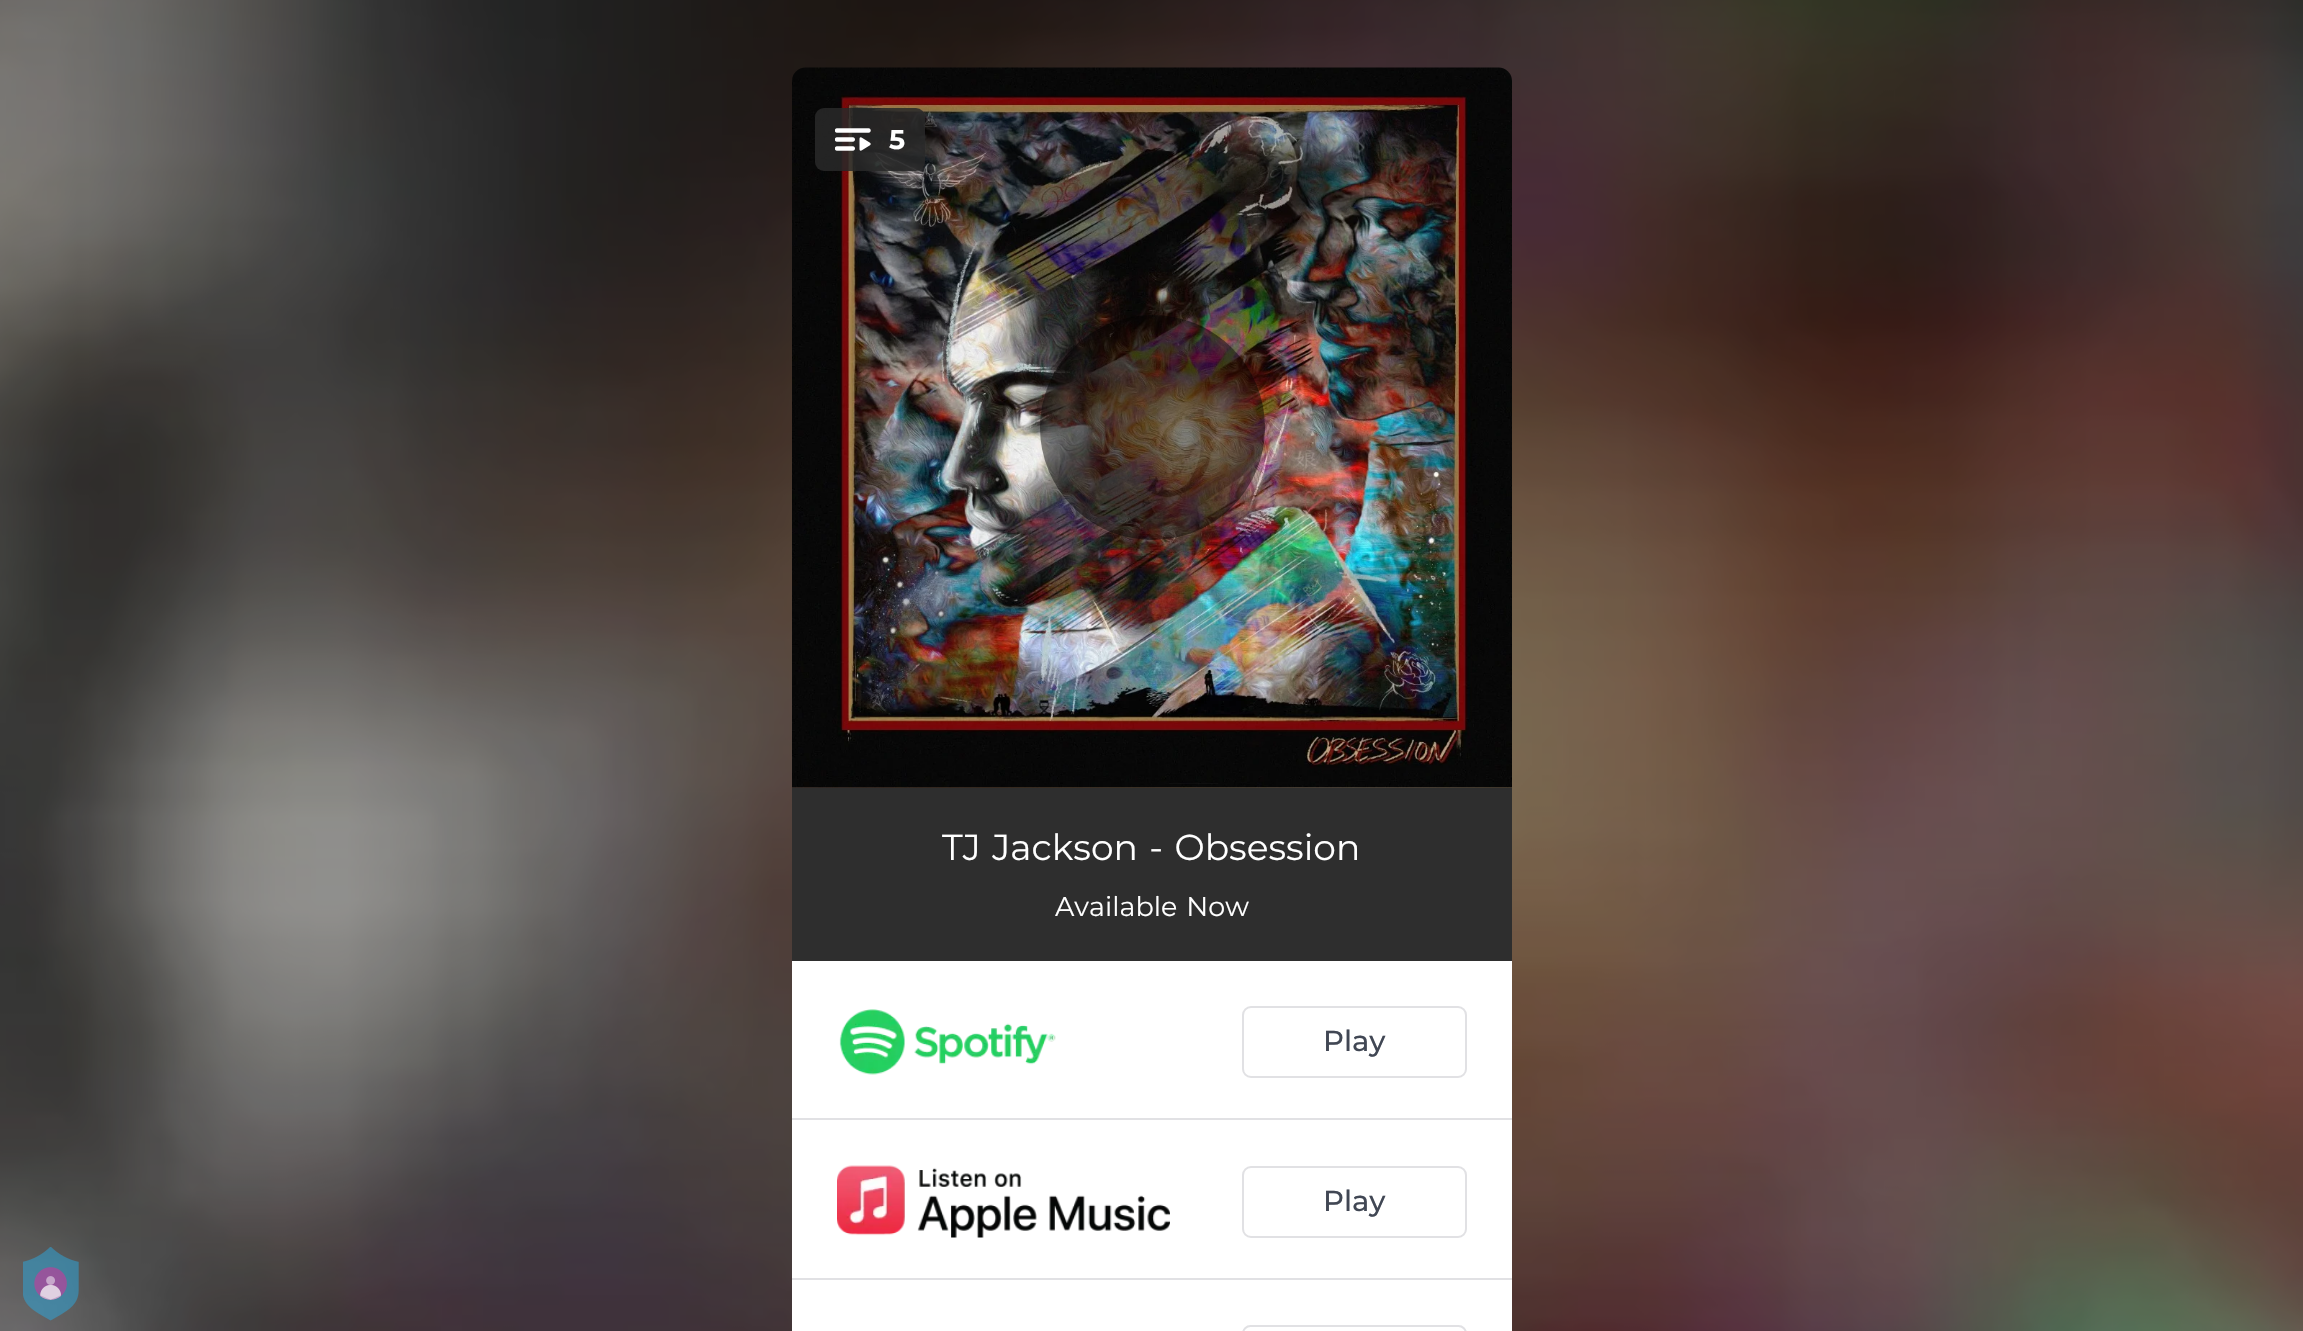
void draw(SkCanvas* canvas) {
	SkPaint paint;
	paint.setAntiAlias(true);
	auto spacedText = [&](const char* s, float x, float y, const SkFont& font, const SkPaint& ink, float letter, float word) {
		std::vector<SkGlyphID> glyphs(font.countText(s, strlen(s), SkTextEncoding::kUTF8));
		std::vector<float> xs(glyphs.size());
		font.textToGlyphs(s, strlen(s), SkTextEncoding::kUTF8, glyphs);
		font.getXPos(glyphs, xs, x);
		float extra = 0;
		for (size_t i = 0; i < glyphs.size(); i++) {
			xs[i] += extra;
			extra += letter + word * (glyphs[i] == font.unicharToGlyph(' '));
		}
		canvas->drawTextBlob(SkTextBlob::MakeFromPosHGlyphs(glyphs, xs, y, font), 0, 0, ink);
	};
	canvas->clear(0xffffffff);
	canvas->drawImageRect(SkImages::DeferredFromEncodedData(SkData::MakeFromFileName("img1.png")), SkRect::MakeXYWH(0, 0, 2303, 1331), SkSamplingOptions());
	canvas->drawImageRect(SkImages::DeferredFromEncodedData(SkData::MakeFromFileName("img2.png")), SkRect::MakeXYWH(792, 67, 720, 721), SkSamplingOptions());
	paint.setColor(0xd9282828);
	canvas->drawRoundRect(SkRect::MakeXYWH(815, 108, 110, 63), 9, 9, paint);
	canvas->drawImageRect(SkImages::DeferredFromEncodedData(SkData::MakeFromFileName("img3.png")), SkRect::MakeXYWH(835, 128, 36, 23), SkSamplingOptions());
	SkFont f1(fontMgr->matchFamilyStyle("Montserrat", SkFontStyle::Bold()), 27);
	f1.setSubpixel(true);
	paint.setColor(0xffffffff);
	canvas->drawString("5", 889, 149, f1, paint);
	paint.setColor(0x73000000);
	canvas->drawCircle(1152.5, 427.5, 112.5, paint);
	paint.setColor(0xff2e2e2e);
	canvas->drawRect(SkRect::MakeXYWH(792, 788, 720, 173), paint);
	SkFont f2(fontMgr->matchFamilyStyle("Montserrat", SkFontStyle::Normal()), 36);
	f2.setSubpixel(true);
	paint.setColor(0xffffffff);
	spacedText("TJ Jackson - Obsession", 942, 860, f2, paint, 0, 2);
	SkFont f3(fontMgr->matchFamilyStyle("Montserrat", SkFontStyle::Normal()), 27);
	f3.setSubpixel(true);
	spacedText("Available Now", 1055, 916, f3, paint, 0, 2);
	canvas->drawRect(SkRect::MakeXYWH(792, 961, 720, 370), paint);
	paint.setColor(0xffe1e1e4);
	canvas->drawRect(SkRect::MakeXYWH(792, 1118, 720, 2), paint);
	canvas->drawImageRect(SkImages::DeferredFromEncodedData(SkData::MakeFromFileName("img4.png")), SkRect::MakeXYWH(839, 1009, 217, 66), SkSamplingOptions());
	paint.setStroke(true);
	paint.setStrokeWidth(2);
	canvas->drawRoundRect(SkRect::MakeXYWH(1243, 1007, 223, 70), 8, 8, paint);
	SkFont f4(fontMgr->matchFamilyStyle("Montserrat", SkFontStyle(500, SkFontStyle::kNormal_Width, SkFontStyle::kUpright_Slant)), 29);
	f4.setSubpixel(true);
	paint.setStroke(false);
	paint.setColor(0xff414754);
	canvas->drawString("Play", 1323, 1051, f4, paint);
	paint.setColor(0xffe1e1e4);
	canvas->drawRect(SkRect::MakeXYWH(792, 1278, 720, 2), paint);
	canvas->drawImageRect(SkImages::DeferredFromEncodedData(SkData::MakeFromFileName("img5.png")), SkRect::MakeXYWH(837, 1165, 333, 73), SkSamplingOptions());
	paint.setStroke(true);
	canvas->drawRoundRect(SkRect::MakeXYWH(1243, 1167, 223, 70), 8, 8, paint);
	paint.setStroke(false);
	paint.setColor(0xff414754);
	canvas->drawString("Play", 1323, 1211, f4, paint);
	paint.setStroke(true);
	paint.setColor(0xffe1e1e4);
	canvas->drawRoundRect(SkRect::MakeXYWH(1243, 1326, 223, 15), 8, 8, paint);
	canvas->drawImageRect(SkImages::DeferredFromEncodedData(SkData::MakeFromFileName("img6.png")), SkRect::MakeXYWH(23, 1247, 56, 74), SkSamplingOptions());
}
